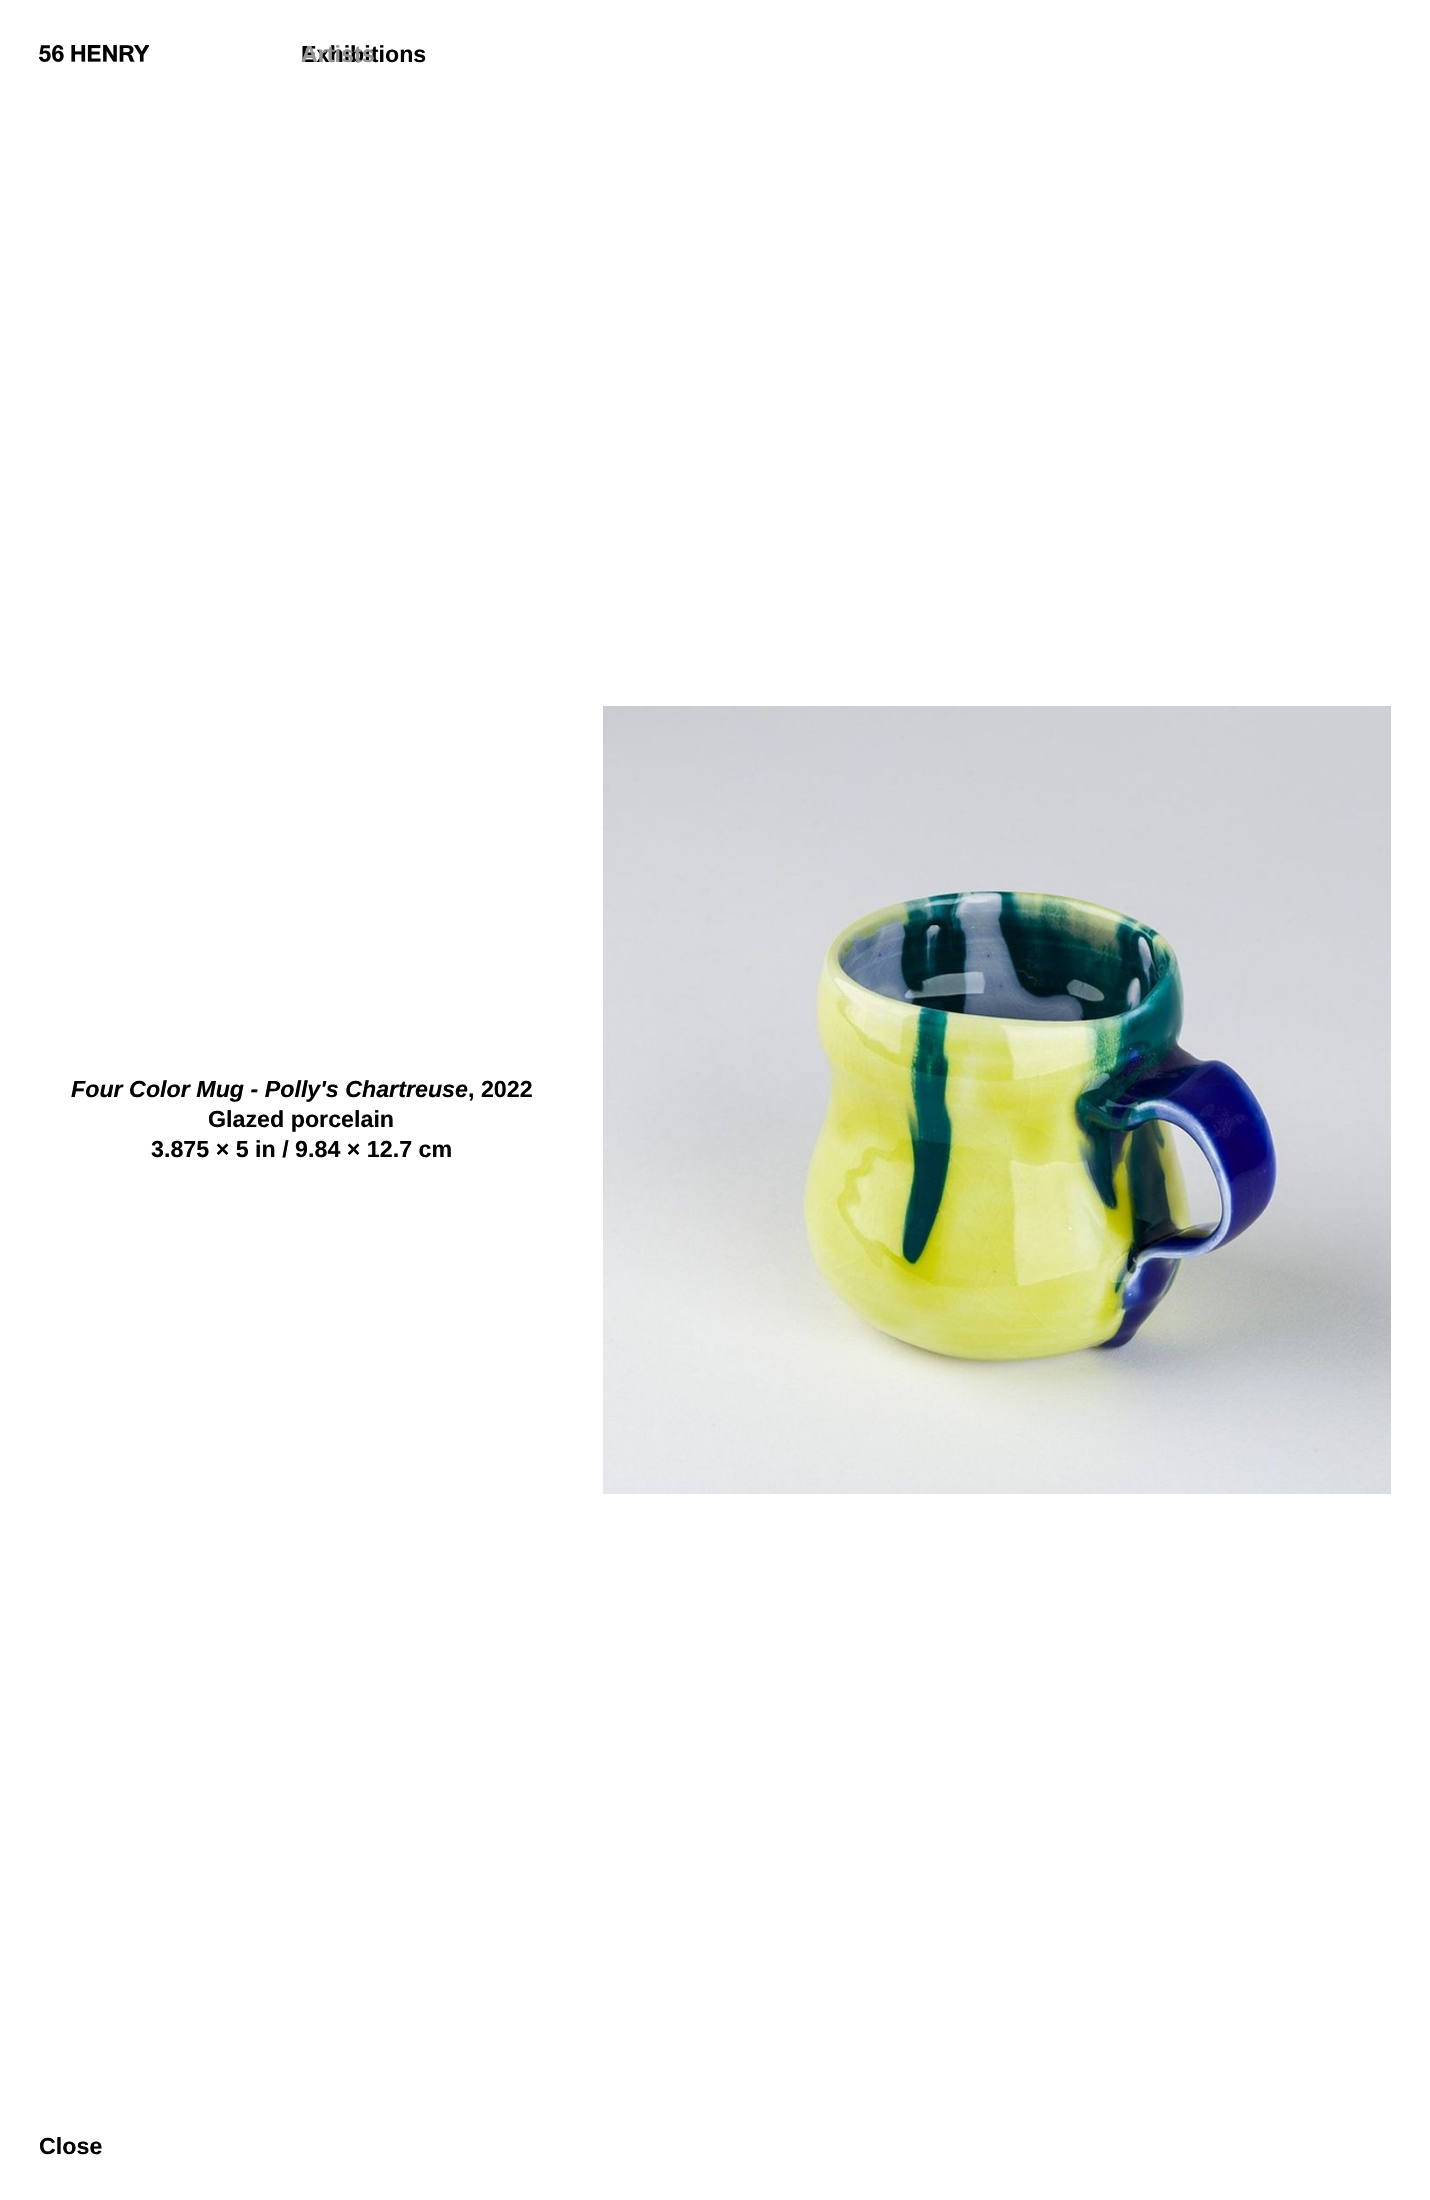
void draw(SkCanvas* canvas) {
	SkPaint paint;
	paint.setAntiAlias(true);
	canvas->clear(0xffffffff);
	canvas->drawImageRect(SkImages::DeferredFromEncodedData(SkData::MakeFromFileName("img1.png")), SkRect::MakeXYWH(39, 45, 110, 17), SkSamplingOptions());
	SkFont f1(fontMgr->matchFamilyStyle("Liberation Sans", SkFontStyle::Bold()), 23.25);
	f1.setSubpixel(true);
	paint.setColor(0xff000000);
	canvas->drawString("Exhibitions", 301, 62, f1, paint);
	paint.setColor(0xff959595);
	canvas->drawString("Artists", 301, 62, f1, paint);
	SkFont f2(fontMgr->matchFamilyStyle("Liberation Sans", SkFontStyle::BoldItalic()), 23.25);
	f2.setSubpixel(true);
	paint.setColor(0xff000000);
	canvas->drawString("Four Color Mug - Polly's Chartreuse", 71, 1097, f2, paint);
	canvas->drawString(", 2022", 468, 1097, f1, paint);
	canvas->drawString("Glazed porcelain", 208, 1127, f1, paint);
	canvas->drawString("3.875 × 5 in / 9.84 × 12.7 cm", 151, 1157, f1, paint);
	canvas->drawString("Close", 39, 2154, f1, paint);
	canvas->drawImageRect(SkImages::DeferredFromEncodedData(SkData::MakeFromFileName("img2.png")), SkRect::MakeXYWH(603, 706, 788, 788), SkSamplingOptions());
}
